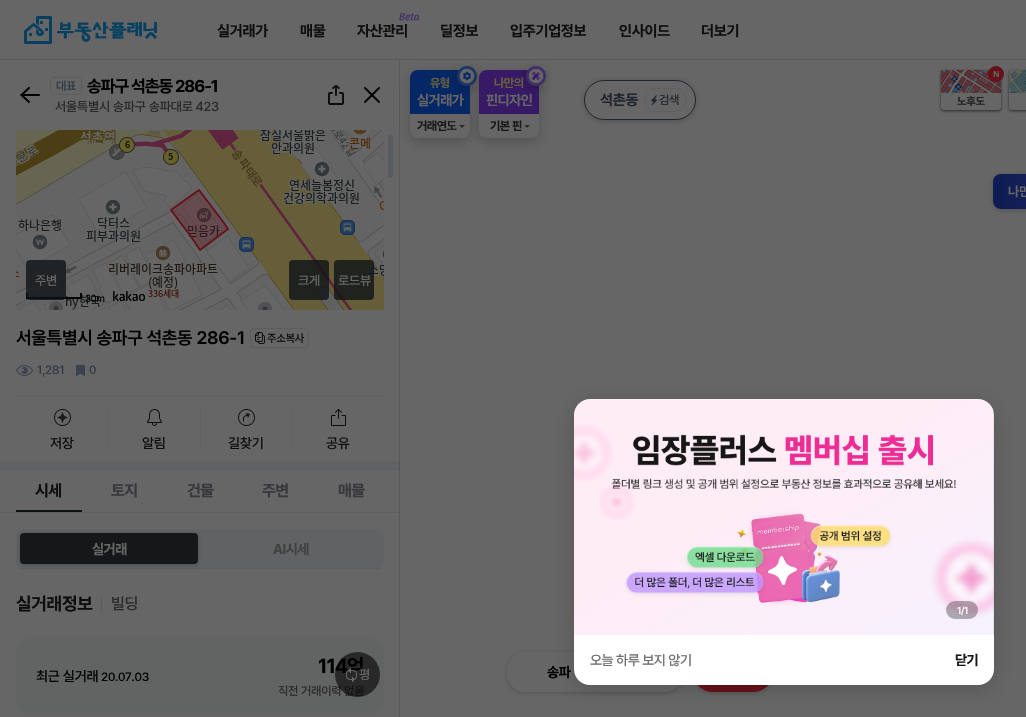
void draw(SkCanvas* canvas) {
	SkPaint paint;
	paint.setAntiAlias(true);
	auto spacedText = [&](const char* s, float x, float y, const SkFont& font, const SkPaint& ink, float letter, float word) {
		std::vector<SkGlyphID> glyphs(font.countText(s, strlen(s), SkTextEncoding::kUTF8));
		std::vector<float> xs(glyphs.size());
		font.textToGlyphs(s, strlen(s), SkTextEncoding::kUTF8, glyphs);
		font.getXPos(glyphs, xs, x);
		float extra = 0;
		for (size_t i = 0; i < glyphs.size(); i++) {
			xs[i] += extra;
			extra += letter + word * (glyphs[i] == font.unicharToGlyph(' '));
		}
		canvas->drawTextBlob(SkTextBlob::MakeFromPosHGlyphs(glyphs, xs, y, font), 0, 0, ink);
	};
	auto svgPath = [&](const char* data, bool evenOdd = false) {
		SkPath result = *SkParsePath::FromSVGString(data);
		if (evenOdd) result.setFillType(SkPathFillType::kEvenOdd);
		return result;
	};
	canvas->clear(0xff666666);
	paint.setColor(0x33000000);
	paint.setMaskFilter(SkMaskFilter::MakeBlur(kNormal_SkBlurStyle, 6));
	canvas->drawRoundRect(SkRect::MakeXYWH(410, 74, 60, 68), 8, 8, paint);
	paint.setMaskFilter(nullptr);
	paint.setColor(0xff062766);
	canvas->drawPath(svgPath("M418 70H462C466.5 70 470 73.5 470 78V114H410V78C410 73.5 413.5 70 418 70Z"), paint);
	canvas->save();
	canvas->clipPath(svgPath("M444 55H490V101H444ZM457 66H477V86H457Z", true), true);
	paint.setColor(0x33000000);
	paint.setMaskFilter(SkMaskFilter::MakeBlur(kNormal_SkBlurStyle, 4));
	canvas->drawRect(SkRect::MakeXYWH(457, 68, 20, 20), paint);
	paint.setMaskFilter(nullptr);
	canvas->restore();
	paint.setColor(0xff666666);
	canvas->drawPath(svgPath("M410 114H470V130C470 134.5 466.5 138 462 138H418C413.5 138 410 134.5 410 130Z"), paint);
	canvas->drawImageRect(SkImages::DeferredFromEncodedData(SkData::MakeFromFileName("img17.png")), SkRect::MakeXYWH(459, 125, 6, 3), SkSamplingOptions());
	canvas->drawImageRect(SkImages::DeferredFromEncodedData(SkData::MakeFromFileName("img18.png")), SkRect::MakeXYWH(457, 66, 20, 20), SkSamplingOptions());
	paint.setColor(0x33000000);
	paint.setMaskFilter(SkMaskFilter::MakeBlur(kNormal_SkBlurStyle, 6));
	canvas->drawRoundRect(SkRect::MakeXYWH(479, 74, 60, 68), 8, 8, paint);
	paint.setMaskFilter(nullptr);
	paint.setColor(0xff371965);
	canvas->drawPath(svgPath("M487 70H531C535.5 70 539 73.5 539 78V114H479V78C479 73.5 482.5 70 487 70Z"), paint);
	canvas->save();
	canvas->clipPath(svgPath("M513 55H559V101H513ZM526 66H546V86H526Z", true), true);
	paint.setColor(0x33000000);
	paint.setMaskFilter(SkMaskFilter::MakeBlur(kNormal_SkBlurStyle, 4));
	canvas->drawRect(SkRect::MakeXYWH(526, 68, 20, 20), paint);
	paint.setMaskFilter(nullptr);
	canvas->restore();
	paint.setColor(0xff585858);
	canvas->drawRect(SkRect::MakeXYWH(0, 59, 1026, 1), paint);
	canvas->drawImageRect(SkImages::DeferredFromEncodedData(SkData::MakeFromFileName("img1.png")), SkRect::MakeXYWH(24, 16, 133, 28), SkSamplingOptions());
	SkFont f1(fontMgr->matchFamilyStyle("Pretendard", SkFontStyle::Bold()), 15);
	f1.setSubpixel(true);
	paint.setColor(0xff0e0e0e);
	spacedText("실거래가", 217, 36, f1, paint, -0.25, 0);
	spacedText("매물", 300, 36, f1, paint, -0.25, 0);
	canvas->drawImageRect(SkImages::DeferredFromEncodedData(SkData::MakeFromFileName("img2.png")), SkRect::MakeXYWH(399, 13, 21, 8), SkSamplingOptions());
	spacedText("자산관리", 357, 36, f1, paint, -0.25, 0);
	spacedText("딜정보", 440, 36, f1, paint, -0.25, 0);
	spacedText("입주기업정보", 510, 36, f1, paint, -0.25, 0);
	spacedText("인사이드", 619, 36, f1, paint, -0.25, 0);
	spacedText("더보기", 701, 36, f1, paint, -0.25, 0);
	canvas->drawImageRect(SkImages::DeferredFromEncodedData(SkData::MakeFromFileName("img3.png")), SkRect::MakeXYWH(20, 87, 20, 16), SkSamplingOptions());
	paint.setStroke(true);
	paint.setStrokeWidth(1);
	paint.setColor(0xff5c5c5c);
	canvas->drawRoundRect(SkRect::MakeXYWH(50.5, 77.5, 31, 17), 3.5, 3.5, paint);
	SkFont f2(fontMgr->matchFamilyStyle("Pretendard", SkFontStyle(500, SkFontStyle::kNormal_Width, SkFontStyle::kUpright_Slant)), 12);
	f2.setSubpixel(true);
	paint.setStroke(false);
	paint.setColor(0xff303a45);
	spacedText("대표", 56, 90, f2, paint, -0.25, 0);
	SkFont f3(fontMgr->matchFamilyStyle("Pretendard", SkFontStyle::Bold()), 17);
	f3.setSubpixel(true);
	paint.setColor(0xff000000);
	spacedText("송파구 석촌동 286-1", 87, 92, f3, paint, -1, 0);
	SkFont f4(fontMgr->matchFamilyStyle("Pretendard", SkFontStyle(500, SkFontStyle::kNormal_Width, SkFontStyle::kUpright_Slant)), 13);
	f4.setSubpixel(true);
	paint.setColor(0xff292929);
	spacedText("서울특별시 송파구 송파대로 423", 55, 111, f4, paint, -0.25, 0);
	canvas->drawImageRect(SkImages::DeferredFromEncodedData(SkData::MakeFromFileName("img4.png")), SkRect::MakeXYWH(328, 85, 16, 20), SkSamplingOptions());
	canvas->drawImageRect(SkImages::DeferredFromEncodedData(SkData::MakeFromFileName("img5.png")), SkRect::MakeXYWH(364, 87, 16, 16), SkSamplingOptions());
	paint.setColor(0xff585b5e);
	canvas->drawRoundRect(SkRect::MakeXYWH(388, 135, 5, 43), 2.5, 2.5, paint);
	paint.setColor(0xff616263);
	canvas->drawRect(SkRect::MakeXYWH(0, 461, 400, 8), paint);
	canvas->drawImageRect(SkImages::DeferredFromEncodedData(SkData::MakeFromFileName("img6.png")), SkRect::MakeXYWH(16, 130, 178, 180), SkSamplingOptions());
	canvas->drawImageRect(SkImages::DeferredFromEncodedData(SkData::MakeFromFileName("img7.png")), SkRect::MakeXYWH(194, 130, 190, 180), SkSamplingOptions());
	paint.setColor(0x4d66121a);
	canvas->drawPath(svgPath("M199 190L224 223L228 229L200 250L192 238L171 210Z", true), paint);
	paint.setStroke(true);
	paint.setStrokeWidth(2);
	paint.setStrokeCap(SkPaint::kRound_Cap);
	paint.setStrokeJoin(SkPaint::kRound_Join);
	paint.setColor(0xff66121a);
	canvas->drawPath(svgPath("M199 190L224 223L228 229L200 250L192 238L171 210Z", true), paint);
	paint.setStroke(false);
	paint.setColor(0xff000000);
	canvas->drawRect(SkRect::MakeXYWH(80, 293, 2, 6), paint);
	canvas->drawRect(SkRect::MakeXYWH(26, 297, 56, 2), paint);
	canvas->drawRect(SkRect::MakeXYWH(26, 293, 2, 6), paint);
	paint.setColor(0xcc0e1317);
	canvas->drawRoundRect(SkRect::MakeXYWH(26, 260, 40, 40), 4, 4, paint);
	paint.setColor(0xff666666);
	spacedText("주변", 35, 285, f4, paint, -0.25, 0);
	paint.setColor(0xcc0e1317);
	canvas->drawRoundRect(SkRect::MakeXYWH(289, 260, 40, 40), 4, 4, paint);
	paint.setColor(0xff666666);
	spacedText("크게", 298, 285, f4, paint, -0.25, 0);
	paint.setColor(0xcc0e1317);
	canvas->drawRoundRect(SkRect::MakeXYWH(334, 260, 40, 40), 4, 4, paint);
	paint.setColor(0xff666666);
	spacedText("로드뷰", 338, 285, f4, paint, -0.25, 0);
	SkFont f5(fontMgr->matchFamilyStyle("Dotum", SkFontStyle::Bold()), 10);
	f5.setSubpixel(true);
	paint.setColor(0xff000000);
	spacedText("30m", 85, 302, f5, paint, -0.25, 0);
	canvas->drawImageRect(SkImages::DeferredFromEncodedData(SkData::MakeFromFileName("img8.png")), SkRect::MakeXYWH(113, 291, 32, 10), SkSamplingOptions());
	SkFont f6(fontMgr->matchFamilyStyle("Pretendard", SkFontStyle(600, SkFontStyle::kNormal_Width, SkFontStyle::kUpright_Slant)), 18);
	f6.setSubpixel(true);
	spacedText("서울특별시 송파구 석촌동 286-1", 16, 344, f6, paint, -0.25, 0);
	paint.setStroke(true);
	paint.setStrokeWidth(1);
	paint.setStrokeCap(SkPaint::kButt_Cap);
	paint.setStrokeJoin(SkPaint::kMiter_Join);
	paint.setColor(0xff5c5c5c);
	canvas->drawRoundRect(SkRect::MakeXYWH(250.5, 328.5, 58, 19), 3.5, 3.5, paint);
	canvas->drawImageRect(SkImages::DeferredFromEncodedData(SkData::MakeFromFileName("img9.png")), SkRect::MakeXYWH(255, 332, 10, 12), SkSamplingOptions());
	SkFont f7(fontMgr->matchFamilyStyle("Pretendard", SkFontStyle(500, SkFontStyle::kNormal_Width, SkFontStyle::kUpright_Slant)), 11);
	f7.setSubpixel(true);
	paint.setStroke(false);
	paint.setColor(0xff0e0e0e);
	spacedText("주소복사", 267, 342, f7, paint, -0.25, 0);
	canvas->drawImageRect(SkImages::DeferredFromEncodedData(SkData::MakeFromFileName("img10.png")), SkRect::MakeXYWH(16, 365, 17, 11), SkSamplingOptions());
	paint.setColor(0xff303a45);
	spacedText("1,281", 37, 374, f2, paint, -0.25, 0);
	canvas->drawImageRect(SkImages::DeferredFromEncodedData(SkData::MakeFromFileName("img11.png")), SkRect::MakeXYWH(76, 365, 9, 11), SkSamplingOptions());
	spacedText("0", 89, 374, f2, paint, -0.25, 0);
	paint.setColor(0xff616161);
	canvas->drawRect(SkRect::MakeXYWH(16, 396, 368, 1), paint);
	canvas->drawImageRect(SkImages::DeferredFromEncodedData(SkData::MakeFromFileName("img12.png")), SkRect::MakeXYWH(54, 409, 17, 17), SkSamplingOptions());
	SkFont f8(fontMgr->matchFamilyStyle("Pretendard", SkFontStyle(500, SkFontStyle::kNormal_Width, SkFontStyle::kUpright_Slant)), 14);
	f8.setSubpixel(true);
	paint.setColor(0xff0e0e0e);
	spacedText("저장", 50, 448, f8, paint, -0.25, 0);
	paint.setColor(0xff616161);
	canvas->drawRect(SkRect::MakeXYWH(108, 409, 1, 39), paint);
	canvas->drawImageRect(SkImages::DeferredFromEncodedData(SkData::MakeFromFileName("img13.png")), SkRect::MakeXYWH(147, 409, 15, 17), SkSamplingOptions());
	paint.setColor(0xff0e0e0e);
	spacedText("알림", 142, 448, f8, paint, -0.25, 0);
	paint.setColor(0xff616161);
	canvas->drawRect(SkRect::MakeXYWH(200, 409, 1, 39), paint);
	canvas->drawImageRect(SkImages::DeferredFromEncodedData(SkData::MakeFromFileName("img14.png")), SkRect::MakeXYWH(238, 409, 17, 17), SkSamplingOptions());
	paint.setColor(0xff0e0e0e);
	spacedText("길찾기", 228, 448, f8, paint, -0.25, 0);
	paint.setColor(0xff616161);
	canvas->drawRect(SkRect::MakeXYWH(292, 409, 1, 39), paint);
	canvas->drawImageRect(SkImages::DeferredFromEncodedData(SkData::MakeFromFileName("img15.png")), SkRect::MakeXYWH(331, 409, 15, 17), SkSamplingOptions());
	paint.setColor(0xff0e0e0e);
	spacedText("공유", 326, 448, f8, paint, -0.25, 0);
	paint.setColor(0xff616161);
	canvas->drawRect(SkRect::MakeXYWH(0, 469, 400, 1), paint);
	canvas->drawRect(SkRect::MakeXYWH(0, 512, 400, 1), paint);
	SkFont f9(fontMgr->matchFamilyStyle("Pretendard", SkFontStyle::Bold()), 16);
	f9.setSubpixel(true);
	paint.setColor(0xff0e0e0e);
	spacedText("시세", 35, 496, f9, paint, -0.5, 0);
	paint.setColor(0xff0d1011);
	canvas->drawRect(SkRect::MakeXYWH(16, 510, 66, 2), paint);
	paint.setColor(0xff36383c);
	spacedText("토지", 111, 496, f9, paint, -0.5, 0);
	spacedText("건물", 187, 496, f9, paint, -0.5, 0);
	spacedText("주변", 262, 496, f9, paint, -0.5, 0);
	spacedText("매물", 338, 496, f9, paint, -0.5, 0);
	paint.setColor(0xff616263);
	canvas->drawRoundRect(SkRect::MakeXYWH(16, 529, 368, 40), 8, 8, paint);
	paint.setColor(0xff5f5f5f);
	canvas->drawRect(SkRect::MakeXYWH(20, 568, 360, 1), paint);
	paint.setColor(0x33000000);
	paint.setMaskFilter(SkMaskFilter::MakeBlur(kNormal_SkBlurStyle, 2));
	canvas->drawRoundRect(SkRect::MakeXYWH(20, 534, 178, 31), 4, 4, paint);
	paint.setMaskFilter(nullptr);
	paint.setColor(0xff151719);
	canvas->drawRoundRect(SkRect::MakeXYWH(20, 533, 178, 31), 4, 4, paint);
	SkFont f10(fontMgr->matchFamilyStyle("Pretendard", SkFontStyle::Bold()), 14);
	f10.setSubpixel(true);
	paint.setColor(0xff666666);
	spacedText("실거래", 92, 554, f10, paint, -0.5, 0);
	paint.setColor(0xff3f4040);
	spacedText("AI시세", 273, 554, f10, paint, -0.5, 0);
	SkFont f11(fontMgr->matchFamilyStyle("Pretendard", SkFontStyle::Bold()), 18);
	f11.setSubpixel(true);
	paint.setColor(0xff0e0e0e);
	spacedText("실거래정보", 16, 610, f11, paint, -0.25, 0);
	paint.setColor(0xff5c5c5c);
	canvas->drawRect(SkRect::MakeXYWH(101, 597, 1, 16), paint);
	SkFont f12(fontMgr->matchFamilyStyle("Pretendard", SkFontStyle(500, SkFontStyle::kNormal_Width, SkFontStyle::kUpright_Slant)), 16);
	f12.setSubpixel(true);
	paint.setColor(0xff292929);
	spacedText("빌딩", 111, 609, f12, paint, -0.25, 0);
	paint.setColor(0xff626363);
	canvas->drawRoundRect(SkRect::MakeXYWH(16, 636, 368, 80), 16, 16, paint);
	paint.setColor(0xff000000);
	spacedText("최근 실거래", 36, 681, f8, paint, -0.25, 0);
	spacedText("20.07.03", 101, 681, f2, paint, -0.25, 0);
	SkFont f13(fontMgr->matchFamilyStyle("Pretendard", SkFontStyle::Bold()), 20);
	f13.setSubpixel(true);
	spacedText("114억", 318, 673, f13, paint, -1, 0);
	paint.setColor(0xff292929);
	spacedText("직전 거래이력 없음", 278, 695, f2, paint, -0.25, 0);
	paint.setColor(0x99000000);
	canvas->drawCircle(357.5, 674.5, 22.5, paint);
	canvas->drawImageRect(SkImages::DeferredFromEncodedData(SkData::MakeFromFileName("img16.png")), SkRect::MakeXYWH(346, 668, 11, 14), SkSamplingOptions());
	paint.setColor(0xff666666);
	spacedText("평", 359, 679, f4, paint, -0.25, 0);
	paint.setColor(0x21000000);
	canvas->drawRect(SkRect::MakeXYWH(399, 60, 1, 657), paint);
	SkFont f14(fontMgr->matchFamilyStyle("Pretendard", SkFontStyle::Bold()), 12);
	f14.setSubpixel(true);
	paint.setColor(0xff665e40);
	spacedText("유형", 430, 87, f14, paint, -0.5, 0);
	paint.setColor(0xff666666);
	spacedText("실거래가", 417, 105, f10, paint, -0.5, 0);
	paint.setColor(0xff171717);
	spacedText("거래연도", 417, 130, f14, paint, -0.5, 0);
	paint.setColor(0xff665e40);
	spacedText("나만의", 494, 87, f14, paint, -0.5, 0);
	paint.setColor(0xff666666);
	spacedText("핀디자인", 486, 105, f10, paint, -0.5, 0);
	canvas->drawPath(svgPath("M479 114H539V130C539 134.5 535.5 138 531 138H487C482.5 138 479 134.5 479 130Z"), paint);
	paint.setColor(0xff171717);
	spacedText("기본 핀", 490, 130, f14, paint, -0.5, 0);
	canvas->drawImageRect(SkImages::DeferredFromEncodedData(SkData::MakeFromFileName("img17.png")), SkRect::MakeXYWH(524, 125, 6, 3), SkSamplingOptions());
	canvas->drawImageRect(SkImages::DeferredFromEncodedData(SkData::MakeFromFileName("img19.png")), SkRect::MakeXYWH(526, 66, 20, 20), SkSamplingOptions());
	paint.setColor(0x26000000);
	paint.setMaskFilter(SkMaskFilter::MakeBlur(kNormal_SkBlurStyle, 2));
	canvas->drawRoundRect(SkRect::MakeXYWH(583, 80, 114, 42), 21, 21, paint);
	paint.setMaskFilter(nullptr);
	paint.setColor(0xff666666);
	canvas->drawRoundRect(SkRect::MakeXYWH(584.5, 80.5, 111, 39), 19.5, 19.5, paint);
	paint.setStroke(true);
	paint.setColor(0xff20262e);
	canvas->drawRoundRect(SkRect::MakeXYWH(584.5, 80.5, 111, 39), 19.5, 19.5, paint);
	paint.setStroke(false);
	spacedText("석촌동", 600, 105, f1, paint, -0.25, 0);
	paint.setStroke(true);
	paint.setColor(0xff5f5f5f);
	canvas->drawRoundRect(SkRect::MakeXYWH(644.5, 88.5, 42, 23), 11.5, 11.5, paint);
	canvas->drawImageRect(SkImages::DeferredFromEncodedData(SkData::MakeFromFileName("img20.png")), SkRect::MakeXYWH(651, 95, 7, 11), SkSamplingOptions());
	paint.setStroke(false);
	paint.setColor(0xff20262e);
	spacedText("검색", 659, 104, f2, paint, -0.25, 0);
	paint.setColor(0x99000000);
	paint.setMaskFilter(SkMaskFilter::MakeBlur(kNormal_SkBlurStyle, 1.5));
	canvas->drawRoundRect(SkRect::MakeXYWH(941, 71, 60, 40), 3, 3, paint);
	paint.setMaskFilter(nullptr);
	paint.setColor(0xff666666);
	canvas->drawRoundRect(SkRect::MakeXYWH(941, 70, 60, 40), 3, 3, paint);
	canvas->drawImageRect(SkImages::DeferredFromEncodedData(SkData::MakeFromFileName("img22.png")), SkRect::MakeXYWH(941, 70, 60, 23), SkSamplingOptions());
	canvas->drawImageRect(SkImages::DeferredFromEncodedData(SkData::MakeFromFileName("img21.png")), SkRect::MakeXYWH(988, 66, 16, 16), SkSamplingOptions());
	SkFont f15(fontMgr->matchFamilyStyle("Pretendard", SkFontStyle::Bold()), 11);
	f15.setSubpixel(true);
	paint.setColor(0xff212121);
	spacedText("노후도", 957, 105, f15, paint, -0.25, 0);
	paint.setColor(0x99000000);
	paint.setMaskFilter(SkMaskFilter::MakeBlur(kNormal_SkBlurStyle, 1.5));
	canvas->drawRoundRect(SkRect::MakeXYWH(1009, 71, 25, 40), 3, 3, paint);
	paint.setMaskFilter(nullptr);
	paint.setColor(0xff666666);
	canvas->drawRoundRect(SkRect::MakeXYWH(1009, 70, 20, 40), 3, 3, paint);
	canvas->drawImageRect(SkImages::DeferredFromEncodedData(SkData::MakeFromFileName("img23.png")), SkRect::MakeXYWH(1009, 70, 17, 23), SkSamplingOptions());
	paint.setColor(0x26000000);
	paint.setMaskFilter(SkMaskFilter::MakeBlur(kNormal_SkBlurStyle, 2));
	canvas->drawRoundRect(SkRect::MakeXYWH(992, 174, 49, 37), 9, 9, paint);
	paint.setMaskFilter(nullptr);
	{
		const SkColor colors[] = {0xff0e1c54, 0xff3b2964};
		const float stops[] = {0, 1};
		const SkPoint ends[] = {{993, 192}, {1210, 192}};
		paint.setShader(SkGradientShader::MakeLinear(ends, colors, stops, 2, SkTileMode::kClamp));
		paint.setAlpha(255);
	}
	canvas->drawRoundRect(SkRect::MakeXYWH(993, 174, 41, 35), 8, 8, paint);
	SkFont f16(fontMgr->matchFamilyStyle("Pretendard", SkFontStyle::Bold()), 13);
	f16.setSubpixel(true);
	paint.setShader(nullptr);
	paint.setColor(0xff666666);
	canvas->drawString("나만", 1008, 196, f16, paint);
	paint.setColor(0x33000000);
	paint.setMaskFilter(SkMaskFilter::MakeBlur(kNormal_SkBlurStyle, 2));
	canvas->drawRoundRect(SkRect::MakeXYWH(507, 653, 176, 40), 18, 18, paint);
	paint.setMaskFilter(nullptr);
	paint.setColor(0xff666666);
	canvas->drawRoundRect(SkRect::MakeXYWH(507, 652, 176, 40), 18, 18, paint);
	paint.setColor(0xff000000);
	spacedText("송파", 547, 677, f10, paint, -0.25, 0);
	paint.setColor(0x33000000);
	paint.setMaskFilter(SkMaskFilter::MakeBlur(kNormal_SkBlurStyle, 2));
	canvas->drawRoundRect(SkRect::MakeXYWH(693, 653, 80, 40), 20, 20, paint);
	paint.setMaskFilter(nullptr);
	paint.setColor(0xff66121a);
	canvas->drawRoundRect(SkRect::MakeXYWH(693, 652, 80, 40), 20, 20, paint);
	paint.setColor(0x29000000);
	paint.setMaskFilter(SkMaskFilter::MakeBlur(kNormal_SkBlurStyle, 10));
	canvas->drawRoundRect(SkRect::MakeXYWH(574, 403, 420, 286), 16, 16, paint);
	paint.setMaskFilter(nullptr);
	canvas->drawImageRect(SkImages::DeferredFromEncodedData(SkData::MakeFromFileName("img24.png")), SkRect::MakeXYWH(574, 399, 420, 236), SkSamplingOptions());
	paint.setColor(0x4d000000);
	canvas->drawRoundRect(SkRect::MakeXYWH(946, 601, 32, 18), 9, 9, paint);
	SkFont f17(fontMgr->matchFamilyStyle("Pretendard", SkFontStyle(500, SkFontStyle::kNormal_Width, SkFontStyle::kUpright_Slant)), 10);
	f17.setSubpixel(true);
	paint.setColor(0xffffffff);
	spacedText("1/1", 957, 614, f17, paint, -0.5, 0);
	canvas->drawPath(svgPath("M574 635H994V669C994 678 987 685 978 685H590C581 685 574 678 574 669Z"), paint);
	paint.setColor(0xff6f6f6f);
	spacedText("오늘 하루 보지 않기", 590, 665, f8, paint, -0.5, 0);
	paint.setColor(0xff171717);
	spacedText("닫기", 955, 665, f10, paint, -0.5, 0);
}
